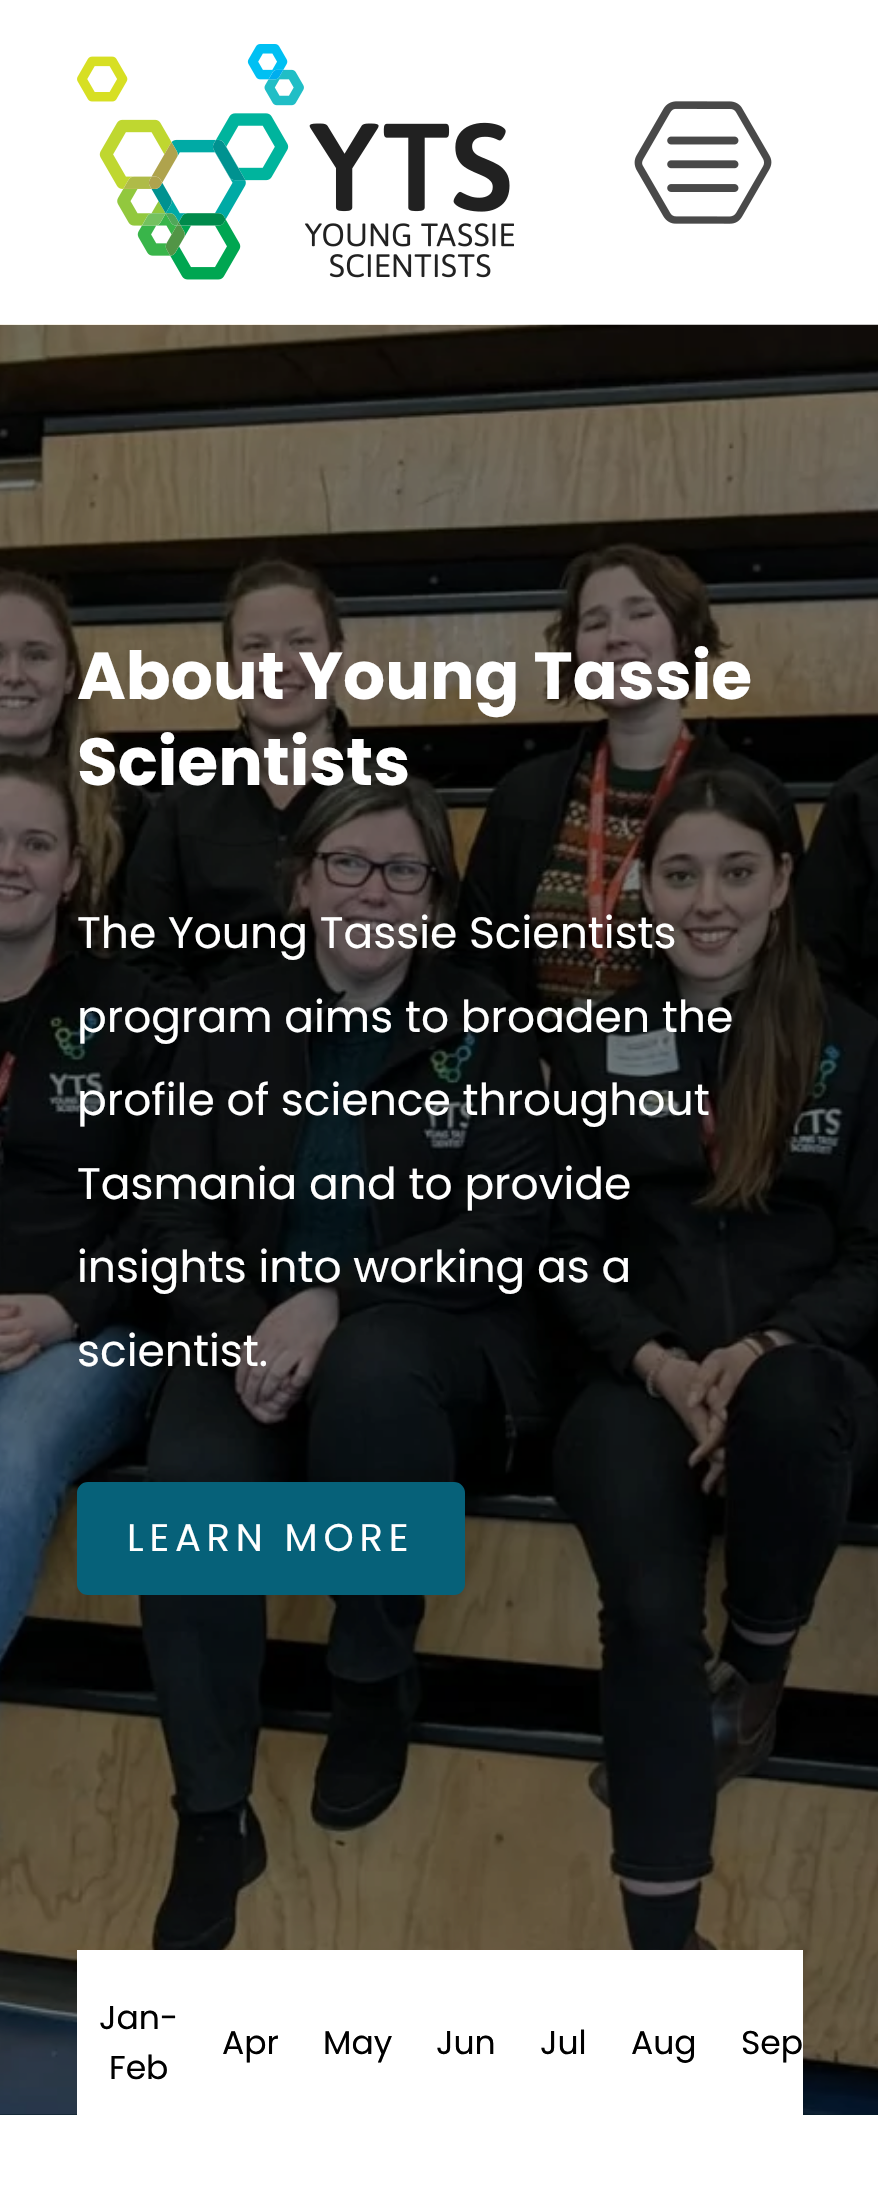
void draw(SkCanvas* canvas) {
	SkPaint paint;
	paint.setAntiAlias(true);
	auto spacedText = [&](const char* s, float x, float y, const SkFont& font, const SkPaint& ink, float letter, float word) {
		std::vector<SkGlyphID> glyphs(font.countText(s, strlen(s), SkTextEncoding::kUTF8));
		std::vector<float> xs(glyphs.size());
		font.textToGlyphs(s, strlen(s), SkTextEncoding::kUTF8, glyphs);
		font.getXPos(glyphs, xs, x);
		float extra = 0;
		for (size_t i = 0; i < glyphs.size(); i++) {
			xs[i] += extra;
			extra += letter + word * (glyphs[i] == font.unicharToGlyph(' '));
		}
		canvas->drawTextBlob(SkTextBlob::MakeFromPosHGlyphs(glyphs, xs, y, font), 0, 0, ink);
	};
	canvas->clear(0xffffffff);
	canvas->drawImageRect(SkImages::DeferredFromEncodedData(SkData::MakeFromFileName("img1.png")), SkRect::MakeXYWH(77, 44, 437, 236), SkSamplingOptions());
	canvas->drawImageRect(SkImages::DeferredFromEncodedData(SkData::MakeFromFileName("img2.png")), SkRect::MakeXYWH(634, 101, 138, 123), SkSamplingOptions());
	paint.setColor(0xff021b22);
	canvas->drawRect(SkRect::MakeXYWH(0, 2114, 878, 1), paint);
	canvas->drawImageRect(SkImages::DeferredFromEncodedData(SkData::MakeFromFileName("img3.png")), SkRect::MakeXYWH(0, 324, 878, 1791), SkSamplingOptions());
	SkFont f1(fontMgr->matchFamilyStyle("Poppins", SkFontStyle::Bold()), 66.25);
	f1.setSubpixel(true);
	paint.setColor(0xffffffff);
	canvas->drawString("About Young Tassie", 77, 699, f1, paint);
	canvas->drawString("Scientists", 77, 785, f1, paint);
	SkFont f2(fontMgr->matchFamilyStyle("Poppins", SkFontStyle::Normal()), 44);
	f2.setSubpixel(true);
	canvas->drawString("The Young Tassie Scientists", 77, 948, f2, paint);
	canvas->drawString("program aims to broaden the", 77, 1032, f2, paint);
	canvas->drawString("profile of science throughout", 77, 1115, f2, paint);
	canvas->drawString("Tasmania and to provide", 77, 1199, f2, paint);
	canvas->drawString("insights into working as a", 77, 1282, f2, paint);
	canvas->drawString("scientist.", 77, 1366, f2, paint);
	paint.setColor(0xff066179);
	canvas->drawRoundRect(SkRect::MakeXYWH(80, 1485, 382, 107), 8, 8, paint);
	paint.setStroke(true);
	paint.setStrokeWidth(6);
	canvas->drawRoundRect(SkRect::MakeXYWH(80, 1485, 382, 107), 8, 8, paint);
	SkFont f3(fontMgr->matchFamilyStyle("Poppins", SkFontStyle::Normal()), 38.5);
	f3.setSubpixel(true);
	paint.setStroke(false);
	paint.setColor(0xffffffff);
	spacedText("LEARN MORE", 127, 1551, f3, paint, 5.75, 0);
	canvas->drawRect(SkRect::MakeXYWH(77, 1950, 726, 165), paint);
	SkFont f4(fontMgr->matchFamilyStyle("Poppins", SkFontStyle::Normal()), 33);
	f4.setSubpixel(true);
	paint.setColor(0xff000000);
	canvas->drawString("Jan-", 99, 2029, f4, paint);
	canvas->drawString("Feb", 109, 2079, f4, paint);
	canvas->drawString("Apr", 222, 2054, f4, paint);
	canvas->drawString("May", 323, 2054, f4, paint);
	canvas->drawString("Jun", 436, 2054, f4, paint);
	canvas->drawString("Jul", 540, 2054, f4, paint);
	canvas->drawString("Aug", 631, 2054, f4, paint);
	canvas->drawString("Sep", 741, 2054, f4, paint);
}
